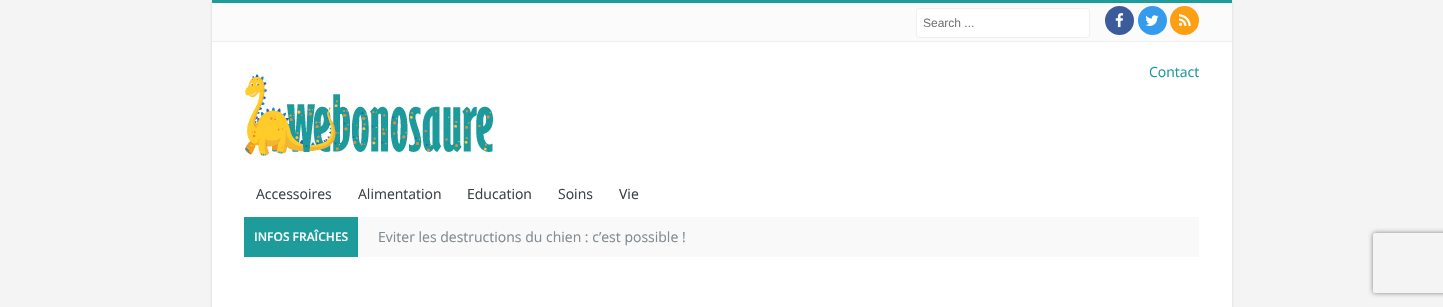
void draw(SkCanvas* canvas) {
	SkPaint paint;
	paint.setAntiAlias(true);
	auto svgPath = [&](const char* data, bool evenOdd = false) {
		SkPath result = *SkParsePath::FromSVGString(data);
		if (evenOdd) result.setFillType(SkPathFillType::kEvenOdd);
		return result;
	};
	canvas->clear(0xfff4f4f4);
	paint.setColor(0x26000000);
	paint.setMaskFilter(SkMaskFilter::MakeBlur(kNormal_SkBlurStyle, 1));
	canvas->drawRect(SkRect::MakeXYWH(212, 1, 1020, 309), paint);
	paint.setMaskFilter(nullptr);
	paint.setColor(0xffffffff);
	canvas->drawRect(SkRect::MakeXYWH(212, 42, 1020, 265), paint);
	paint.setColor(0xfffbfbfb);
	canvas->drawRect(SkRect::MakeXYWH(212, 3, 1020, 38), paint);
	paint.setColor(0xff1e9b9b);
	canvas->drawRect(SkRect::MakeXYWH(212, 0, 1020, 3), paint);
	paint.setColor(0xfff0f0f0);
	canvas->drawRect(SkRect::MakeXYWH(212, 41, 1020, 1), paint);
	paint.setColor(0xffffffff);
	canvas->drawRoundRect(SkRect::MakeXYWH(916.5, 8.5, 173, 29), 2.5, 2.5, paint);
	paint.setStroke(true);
	paint.setStrokeWidth(1);
	paint.setColor(0xfff0f0f0);
	canvas->drawRoundRect(SkRect::MakeXYWH(916.5, 8.5, 173, 29), 2.5, 2.5, paint);
	SkFont f1(fontMgr->matchFamilyStyle("Liberation Sans", SkFontStyle::Normal()), 12);
	f1.setSubpixel(true);
	paint.setStroke(false);
	paint.setColor(0xff757575);
	canvas->drawString("Search ...", 923, 27, f1, paint);
	paint.setColor(0xff3c5b9b);
	canvas->drawCircle(1119.5, 20.5, 14.5, paint);
	canvas->drawImageRect(SkImages::DeferredFromEncodedData(SkData::MakeFromFileName("img1.png")), SkRect::MakeXYWH(1115, 13, 9, 15), SkSamplingOptions());
	paint.setColor(0xff359bed);
	canvas->drawCircle(1152.5, 20.5, 14.5, paint);
	canvas->drawImageRect(SkImages::DeferredFromEncodedData(SkData::MakeFromFileName("img2.png")), SkRect::MakeXYWH(1145, 15, 14, 11), SkSamplingOptions());
	paint.setColor(0xfffd9f13);
	canvas->drawCircle(1184.5, 20.5, 14.5, paint);
	canvas->drawImageRect(SkImages::DeferredFromEncodedData(SkData::MakeFromFileName("img3.png")), SkRect::MakeXYWH(1179, 14, 12, 12), SkSamplingOptions());
	SkFont f2(fontMgr->matchFamilyStyle("Open Sans", SkFontStyle::Normal()), 14);
	f2.setSubpixel(true);
	paint.setColor(0xff1d9a9b);
	canvas->drawString("Contact", 1149, 77, f2, paint);
	canvas->drawImageRect(SkImages::DeferredFromEncodedData(SkData::MakeFromFileName("img4.png")), SkRect::MakeXYWH(245, 74, 248, 82), SkSamplingOptions());
	paint.setColor(0xff3a4145);
	canvas->drawString("Accessoires", 256, 199, f2, paint);
	canvas->drawString("Alimentation", 358, 199, f2, paint);
	canvas->drawString("Education", 467, 199, f2, paint);
	canvas->drawString("Soins", 558, 199, f2, paint);
	canvas->drawString("Vie", 619, 199, f2, paint);
	paint.setColor(0xfff9f9f9);
	canvas->drawRect(SkRect::MakeXYWH(358, 217, 841, 40), paint);
	paint.setColor(0xff1e9b9b);
	canvas->drawRect(SkRect::MakeXYWH(244, 217, 114, 40), paint);
	SkFont f3(fontMgr->matchFamilyStyle("Open Sans", SkFontStyle(600, SkFontStyle::kNormal_Width, SkFontStyle::kUpright_Slant)), 12);
	f3.setSubpixel(true);
	paint.setColor(0xffffffff);
	canvas->drawString("INFOS FRAÎCHES", 254, 241, f3, paint);
	paint.setColor(0xff818b92);
	canvas->drawString("Eviter les destructions du chien : c’est possible !", 378, 242, f2, paint);
	canvas->save();
	canvas->clipPath(svgPath("M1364 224H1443V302H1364ZM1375 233H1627C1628 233 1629 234 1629 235V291C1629 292 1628 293 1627 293H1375C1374 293 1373 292 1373 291V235C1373 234 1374 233 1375 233Z", true), true);
	paint.setColor(0xff808080);
	paint.setMaskFilter(SkMaskFilter::MakeBlur(kNormal_SkBlurStyle, 2.5));
	canvas->drawRoundRect(SkRect::MakeXYWH(1373, 233, 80, 60), 2, 2, paint);
	paint.setMaskFilter(nullptr);
	canvas->restore();
}
